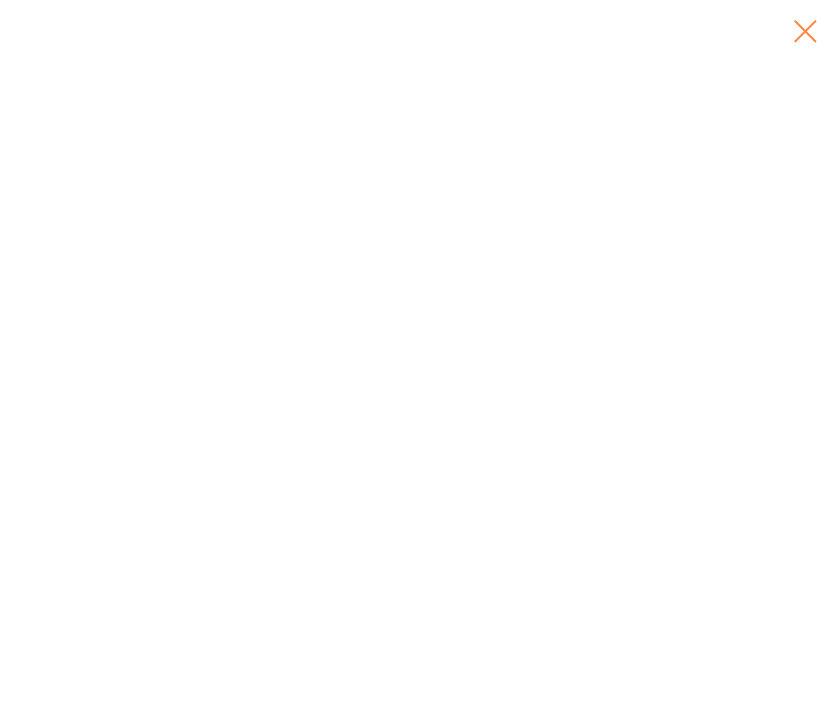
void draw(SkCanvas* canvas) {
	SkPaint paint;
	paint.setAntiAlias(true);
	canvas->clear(0xffffffff);
	canvas->drawImageRect(SkImages::DeferredFromEncodedData(SkData::MakeFromFileName("img1.png")), SkRect::MakeXYWH(794, 20, 23, 23), SkSamplingOptions());
}
